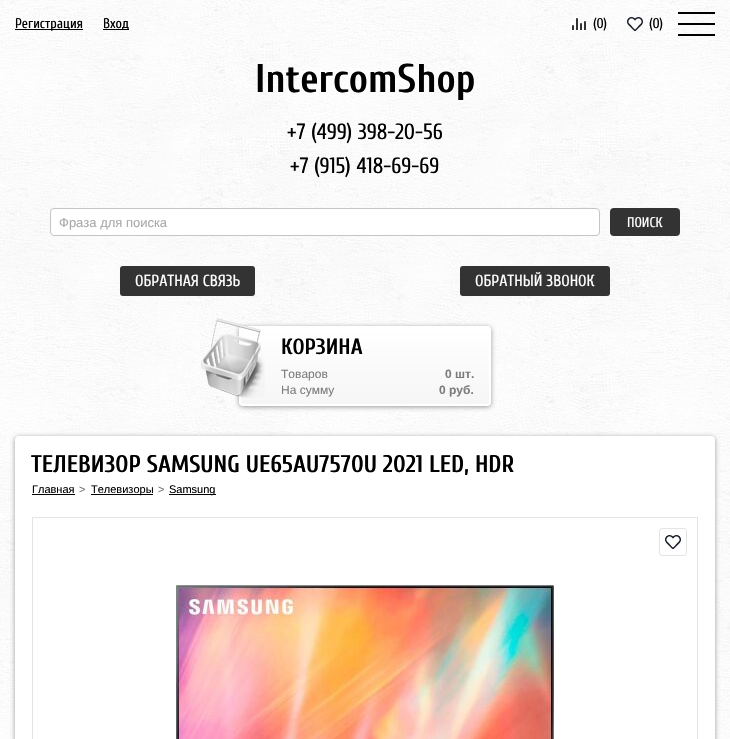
void draw(SkCanvas* canvas) {
	SkPaint paint;
	paint.setAntiAlias(true);
	auto svgPath = [&](const char* data, bool evenOdd = false) {
		SkPath result = *SkParsePath::FromSVGString(data);
		if (evenOdd) result.setFillType(SkPathFillType::kEvenOdd);
		return result;
	};
	canvas->clear(0xffffffff);
	canvas->drawImageRect(SkImages::DeferredFromEncodedData(SkData::MakeFromFileName("img1.png")), SkRect::MakeXYWH(0, 0, 730, 739), SkSamplingOptions());
	paint.setColor(0xff000000);
	canvas->drawRect(SkRect::MakeXYWH(15, 29, 68, 1), paint);
	SkFont f1(fontMgr->matchFamilyStyle("Cuprum", SkFontStyle::Normal()), 14);
	f1.setSubpixel(true);
	canvas->drawString("Регистрация", 15, 28, f1, paint);
	canvas->drawRect(SkRect::MakeXYWH(103, 29, 26, 1), paint);
	canvas->drawString("Вход", 103, 28, f1, paint);
	canvas->drawImageRect(SkImages::DeferredFromEncodedData(SkData::MakeFromFileName("img2.png")), SkRect::MakeXYWH(572, 18, 14, 12), SkSamplingOptions());
	canvas->drawString("(0)", 593, 28, f1, paint);
	canvas->drawImageRect(SkImages::DeferredFromEncodedData(SkData::MakeFromFileName("img3.png")), SkRect::MakeXYWH(627, 17, 16, 14), SkSamplingOptions());
	canvas->drawString("(0)", 649, 28, f1, paint);
	canvas->drawRect(SkRect::MakeXYWH(678, 23, 37, 2), paint);
	canvas->drawRect(SkRect::MakeXYWH(678, 12, 37, 2), paint);
	canvas->drawRect(SkRect::MakeXYWH(678, 34, 37, 2), paint);
	SkFont f2(fontMgr->matchFamilyStyle("Cuprum", SkFontStyle::Bold()), 40);
	f2.setSubpixel(true);
	canvas->drawString("IntercomShop", 255, 92, f2, paint);
	SkFont f3(fontMgr->matchFamilyStyle("Cuprum", SkFontStyle::Normal()), 22);
	f3.setSubpixel(true);
	canvas->drawString("+7 (499) 398-20-56", 287, 139, f3, paint);
	canvas->drawString("+7 (915) 418-69-69", 290, 173, f3, paint);
	paint.setColor(0xffffffff);
	canvas->drawRoundRect(SkRect::MakeXYWH(50.5, 208.5, 549, 27), 3.5, 3.5, paint);
	paint.setStroke(true);
	paint.setStrokeWidth(1);
	paint.setColor(0xffc5c5c5);
	canvas->drawRoundRect(SkRect::MakeXYWH(50.5, 208.5, 549, 27), 3.5, 3.5, paint);
	SkFont f4(fontMgr->matchFamilyStyle("Liberation Sans", SkFontStyle::Normal()), 13);
	f4.setSubpixel(true);
	paint.setStroke(false);
	paint.setColor(0xffa9a9a9);
	canvas->drawString("Фраза для поиска", 59, 227, f4, paint);
	paint.setColor(0xff333333);
	canvas->drawRoundRect(SkRect::MakeXYWH(610, 208, 70, 28), 4, 4, paint);
	paint.setColor(0xffffffff);
	canvas->drawString("ПОИСК", 627, 227, f1, paint);
	paint.setColor(0xff333333);
	canvas->drawRoundRect(SkRect::MakeXYWH(120, 266, 135, 30), 3, 3, paint);
	SkFont f5(fontMgr->matchFamilyStyle("Cuprum", SkFontStyle::Normal()), 16);
	f5.setSubpixel(true);
	paint.setColor(0xffffffff);
	canvas->drawString("ОБРАТНАЯ СВЯЗЬ", 135, 286, f5, paint);
	paint.setColor(0xff333333);
	canvas->drawRoundRect(SkRect::MakeXYWH(460, 266, 150, 30), 3, 3, paint);
	paint.setColor(0xffffffff);
	canvas->drawString("ОБРАТНЫЙ ЗВОНОК", 475, 286, f5, paint);
	paint.setColor(0xff999999);
	paint.setMaskFilter(SkMaskFilter::MakeBlur(kNormal_SkBlurStyle, 2.5));
	canvas->drawRoundRect(SkRect::MakeXYWH(239, 327, 252, 80), 4, 4, paint);
	paint.setMaskFilter(nullptr);
	canvas->save();
	canvas->clipPath(svgPath("M243 326H487C489 326 491 328 491 330V402C491 404 489 406 487 406H243C241 406 239 404 239 402V330C239 328 241 326 243 326Z"), true);
	{
		const SkColor colors[] = {0xffffffff, 0xfff6f6f6};
		const float stops[] = {0, 1};
		const SkPoint ends[] = {{365, 328}, {365, 404}};
		paint.setShader(SkGradientShader::MakeLinear(ends, colors, stops, 2, SkTileMode::kClamp));
		paint.setAlpha(255);
	}
	canvas->drawRect(SkRect::MakeXYWH(239, 328, 252, 76), paint);
	canvas->restore();
	paint.setStroke(true);
	paint.setStrokeWidth(2);
	paint.setShader(nullptr);
	paint.setColor(0xffffffff);
	canvas->drawRoundRect(SkRect::MakeXYWH(240, 327, 250, 78), 3, 3, paint);
	canvas->drawImageRect(SkImages::DeferredFromEncodedData(SkData::MakeFromFileName("img4.png")), SkRect::MakeXYWH(201, 318, 64, 80), SkSamplingOptions());
	SkFont f6(fontMgr->matchFamilyStyle("Cuprum", SkFontStyle::Bold()), 22);
	f6.setSubpixel(true);
	paint.setStroke(false);
	paint.setColor(0xff000000);
	canvas->drawString("КОРЗИНА", 281, 354, f6, paint);
	SkFont f7(fontMgr->matchFamilyStyle("Liberation Sans", SkFontStyle::Normal()), 12);
	f7.setSubpixel(true);
	paint.setColor(0xff7c7c7c);
	canvas->drawString("Товарoв", 281, 378, f7, paint);
	SkFont f8(fontMgr->matchFamilyStyle("Liberation Sans", SkFontStyle::Bold()), 12);
	f8.setSubpixel(true);
	canvas->drawString("0 шт.", 445, 378, f8, paint);
	canvas->drawString("На сумму", 281, 394, f7, paint);
	canvas->drawString("0 руб.", 439, 394, f8, paint);
	paint.setColor(0xff999999);
	paint.setMaskFilter(SkMaskFilter::MakeBlur(kNormal_SkBlurStyle, 2.5));
	canvas->drawRoundRect(SkRect::MakeXYWH(15, 437, 700, 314), 4, 4, paint);
	paint.setMaskFilter(nullptr);
	paint.setColor(0xffffffff);
	canvas->drawRoundRect(SkRect::MakeXYWH(16, 437, 698, 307), 3, 3, paint);
	paint.setStroke(true);
	canvas->drawRoundRect(SkRect::MakeXYWH(16, 437, 698, 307), 3, 3, paint);
	SkFont f9(fontMgr->matchFamilyStyle("Cuprum", SkFontStyle::Bold()), 24);
	f9.setSubpixel(true);
	paint.setStroke(false);
	paint.setColor(0xff000000);
	canvas->drawString("ТЕЛЕВИЗОР SAMSUNG UE65AU7570U 2021 LED, HDR", 31, 472, f9, paint);
	SkFont f10(fontMgr->matchFamilyStyle("Liberation Sans", SkFontStyle::Normal()), 11);
	f10.setSubpixel(true);
	canvas->drawString("Главная", 32, 493, f10, paint);
	canvas->drawRect(SkRect::MakeXYWH(32, 494, 43, 1), paint);
	paint.setColor(0xff7c7c7c);
	canvas->drawString(">", 79, 493, f10, paint);
	paint.setColor(0xff000000);
	canvas->drawRect(SkRect::MakeXYWH(91, 494, 62, 1), paint);
	canvas->drawString("Телевизоры", 91, 493, f10, paint);
	paint.setColor(0xff7c7c7c);
	canvas->drawString(">", 158, 493, f10, paint);
	paint.setColor(0xff000000);
	canvas->drawRect(SkRect::MakeXYWH(169, 494, 47, 1), paint);
	canvas->drawString("Samsung", 169, 493, f10, paint);
	paint.setStroke(true);
	paint.setStrokeWidth(1);
	paint.setColor(0xffe4e4e4);
	canvas->drawRect(SkRect::MakeXYWH(32.5, 517.5, 665, 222), paint);
	canvas->drawImageRect(SkImages::DeferredFromEncodedData(SkData::MakeFromFileName("img5.png")), SkRect::MakeXYWH(665, 535, 16, 14), SkSamplingOptions());
	canvas->drawRoundRect(SkRect::MakeXYWH(659.5, 528.5, 27, 27), 2.5, 2.5, paint);
	canvas->drawImageRect(SkImages::DeferredFromEncodedData(SkData::MakeFromFileName("img6.png")), SkRect::MakeXYWH(176, 585, 378, 154), SkSamplingOptions());
}
